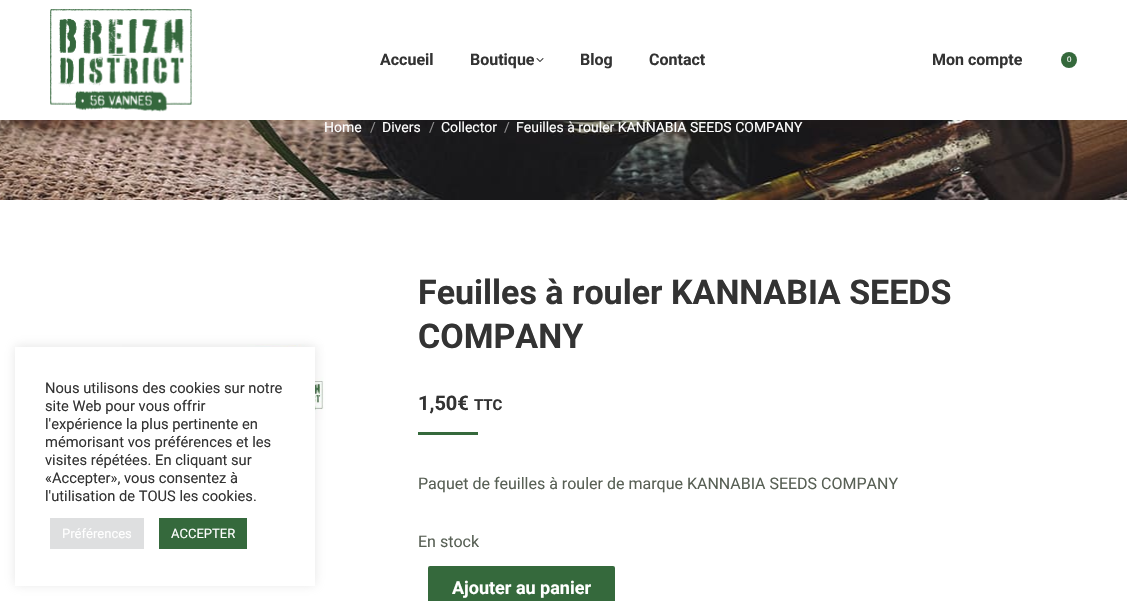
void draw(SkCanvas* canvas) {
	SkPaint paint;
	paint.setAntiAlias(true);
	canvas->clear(0xffffffff);
	canvas->drawImageRect(SkImages::DeferredFromEncodedData(SkData::MakeFromFileName("img4.png")), SkRect::MakeXYWH(122, 344, 202, 76), SkSamplingOptions());
	paint.setColor(0x4dacabab);
	paint.setMaskFilter(SkMaskFilter::MakeBlur(kNormal_SkBlurStyle, 5));
	canvas->drawRect(SkRect::MakeXYWH(15, 346, 300, 239), paint);
	paint.setMaskFilter(nullptr);
	paint.setColor(0xffffffff);
	canvas->drawRect(SkRect::MakeXYWH(15, 347, 300, 239), paint);
	SkFont f1(fontMgr->matchFamilyStyle("Roboto", SkFontStyle::Normal()), 14.7);
	f1.setSubpixel(true);
	paint.setColor(0xff333333);
	canvas->drawString("Nous utilisons des cookies sur notre", 45, 393, f1, paint);
	canvas->drawString("site Web pour vous offrir", 45, 411, f1, paint);
	canvas->drawString("l'expérience la plus pertinente en", 45, 429, f1, paint);
	canvas->drawString("mémorisant vos préférences et les", 45, 447, f1, paint);
	canvas->drawString("visites répétées. En cliquant sur", 45, 465, f1, paint);
	canvas->drawString("«Accepter», vous consentez à", 45, 483, f1, paint);
	canvas->drawString("l'utilisation de TOUS les cookies.", 45, 501, f1, paint);
	paint.setColor(0xffdedfe0);
	canvas->drawRect(SkRect::MakeXYWH(50, 518, 94, 31), paint);
	SkFont f2(fontMgr->matchFamilyStyle("Roboto", SkFontStyle::Normal()), 13);
	f2.setSubpixel(true);
	paint.setColor(0xffffffff);
	canvas->drawString("Préférences", 62, 538, f2, paint);
	paint.setColor(0xff35693c);
	canvas->drawRect(SkRect::MakeXYWH(159, 518, 88, 31), paint);
	paint.setColor(0xffffffff);
	canvas->drawString("ACCEPTER", 171, 538, f2, paint);
	canvas->drawImageRect(SkImages::DeferredFromEncodedData(SkData::MakeFromFileName("img3.png")), SkRect::MakeXYWH(0, 120, 1127, 80), SkSamplingOptions());
	paint.setColor(0x12000000);
	paint.setMaskFilter(SkMaskFilter::MakeBlur(kNormal_SkBlurStyle, 7.5));
	canvas->drawRect(SkRect::MakeXYWH(-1, -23, 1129, 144), paint);
	paint.setMaskFilter(nullptr);
	paint.setColor(0xffffffff);
	canvas->drawRect(SkRect::MakeXYWH(0, 0, 1127, 120), paint);
	canvas->drawImageRect(SkImages::DeferredFromEncodedData(SkData::MakeFromFileName("img1.png")), SkRect::MakeXYWH(50, 9, 142, 103), SkSamplingOptions());
	SkFont f3(fontMgr->matchFamilyStyle("Roboto", SkFontStyle::Bold()), 16);
	f3.setSubpixel(true);
	paint.setColor(0xff333333);
	canvas->drawString("Accueil", 380, 65, f3, paint);
	canvas->drawString("Boutique", 470, 65, f3, paint);
	canvas->drawImageRect(SkImages::DeferredFromEncodedData(SkData::MakeFromFileName("img2.png")), SkRect::MakeXYWH(536, 58, 8, 4), SkSamplingOptions());
	canvas->drawString("Blog", 580, 65, f3, paint);
	canvas->drawString("Contact", 649, 65, f3, paint);
	canvas->drawString("Mon compte", 932, 65, f3, paint);
	paint.setColor(0xff35693c);
	canvas->drawCircle(1069, 60, 8, paint);
	SkFont f4(fontMgr->matchFamilyStyle("Liberation Sans", SkFontStyle::Normal()), 8);
	f4.setSubpixel(true);
	paint.setColor(0xffffffff);
	canvas->drawString("0", 1067, 62, f4, paint);
	SkFont f5(fontMgr->matchFamilyStyle("Roboto", SkFontStyle::Normal()), 14);
	f5.setSubpixel(true);
	canvas->drawString("Home", 324, 132, f5, paint);
	paint.setColor(0xff8f8e8f);
	canvas->drawString("/", 370, 132, f5, paint);
	paint.setColor(0xffffffff);
	canvas->drawString("Divers", 382, 132, f5, paint);
	paint.setColor(0xff8f8e8f);
	canvas->drawString("/", 429, 132, f5, paint);
	paint.setColor(0xffffffff);
	canvas->drawString("Collector", 441, 132, f5, paint);
	paint.setColor(0xff8f8e8f);
	canvas->drawString("/", 504, 132, f5, paint);
	paint.setColor(0xffffffff);
	canvas->drawString("Feuilles à rouler KANNABIA SEEDS COMPANY", 516, 132, f5, paint);
	SkFont f6(fontMgr->matchFamilyStyle("Roboto", SkFontStyle::Bold()), 34);
	f6.setSubpixel(true);
	paint.setColor(0xff333333);
	canvas->drawString("Feuilles à rouler KANNABIA SEEDS", 418, 304, f6, paint);
	canvas->drawString("COMPANY", 418, 348, f6, paint);
	SkFont f7(fontMgr->matchFamilyStyle("Roboto", SkFontStyle::Bold()), 20);
	f7.setSubpixel(true);
	canvas->drawString("1,50€", 418, 410, f7, paint);
	SkFont f8(fontMgr->matchFamilyStyle("Roboto", SkFontStyle::Bold()), 15);
	f8.setSubpixel(true);
	canvas->drawString("TTC", 474, 410, f8, paint);
	paint.setColor(0xff35693c);
	canvas->drawRect(SkRect::MakeXYWH(418, 432, 60, 3), paint);
	SkFont f9(fontMgr->matchFamilyStyle("Roboto", SkFontStyle::Normal()), 16);
	f9.setSubpixel(true);
	paint.setColor(0xff586055);
	canvas->drawString("Paquet de feuilles à rouler de marque KANNABIA SEEDS COMPANY", 418, 489, f9, paint);
	canvas->drawString("En stock", 418, 547, f9, paint);
	paint.setColor(0xff35693c);
	canvas->drawRoundRect(SkRect::MakeXYWH(428, 566, 187, 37), 2, 2, paint);
	SkFont f10(fontMgr->matchFamilyStyle("Roboto", SkFontStyle::Bold()), 18);
	f10.setSubpixel(true);
	paint.setColor(0xffffffff);
	canvas->drawString("Ajouter au panier", 452, 594, f10, paint);
}
